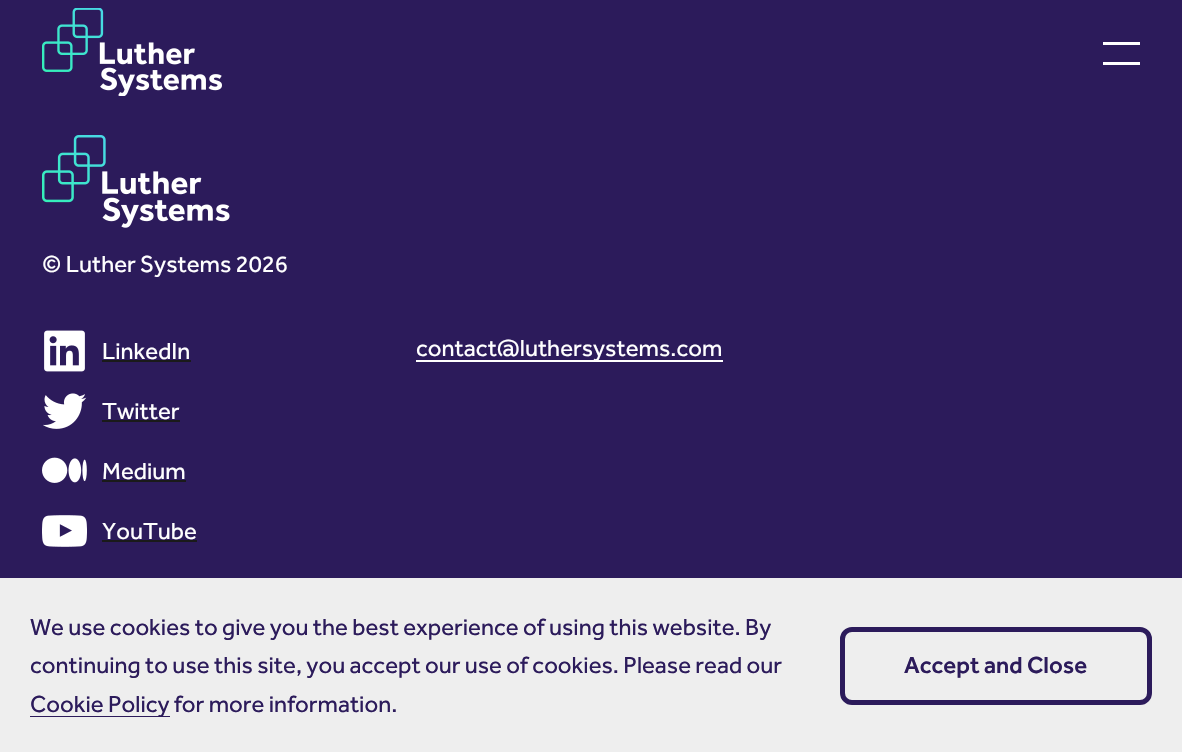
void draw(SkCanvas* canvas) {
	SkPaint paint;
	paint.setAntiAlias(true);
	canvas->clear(0xff2c1b5b);
	canvas->drawImageRect(SkImages::DeferredFromEncodedData(SkData::MakeFromFileName("img1.png")), SkRect::MakeXYWH(42, 8, 180, 88), SkSamplingOptions());
	paint.setColor(0xffffffff);
	canvas->drawRect(SkRect::MakeXYWH(1103, 42, 37, 3), paint);
	canvas->drawRect(SkRect::MakeXYWH(1103, 62, 37, 3), paint);
	canvas->drawImageRect(SkImages::DeferredFromEncodedData(SkData::MakeFromFileName("img2.png")), SkRect::MakeXYWH(42, 135, 188, 93), SkSamplingOptions());
	SkFont f1(fontMgr->matchFamilyStyle("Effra", SkFontStyle::Normal()), 24);
	f1.setSubpixel(true);
	canvas->drawString("© Luther Systems 2026", 42, 272, f1, paint);
	canvas->drawImageRect(SkImages::DeferredFromEncodedData(SkData::MakeFromFileName("img3.png")), SkRect::MakeXYWH(44, 330, 41, 42), SkSamplingOptions());
	canvas->drawString("LinkedIn", 102, 359, f1, paint);
	paint.setColor(0xff1a1a1a);
	canvas->drawRect(SkRect::MakeXYWH(102, 360, 89, 2), paint);
	canvas->drawImageRect(SkImages::DeferredFromEncodedData(SkData::MakeFromFileName("img4.png")), SkRect::MakeXYWH(43, 393, 44, 36), SkSamplingOptions());
	paint.setColor(0xffffffff);
	canvas->drawString("Twitter", 102, 419, f1, paint);
	paint.setColor(0xff1a1a1a);
	canvas->drawRect(SkRect::MakeXYWH(102, 420, 78, 2), paint);
	canvas->drawImageRect(SkImages::DeferredFromEncodedData(SkData::MakeFromFileName("img5.png")), SkRect::MakeXYWH(42, 457, 45, 26), SkSamplingOptions());
	paint.setColor(0xffffffff);
	canvas->drawString("Medium", 102, 479, f1, paint);
	paint.setColor(0xff1a1a1a);
	canvas->drawRect(SkRect::MakeXYWH(102, 480, 84, 2), paint);
	canvas->drawImageRect(SkImages::DeferredFromEncodedData(SkData::MakeFromFileName("img6.png")), SkRect::MakeXYWH(42, 515, 45, 32), SkSamplingOptions());
	paint.setColor(0xffffffff);
	canvas->drawString("YouTube", 102, 539, f1, paint);
	paint.setColor(0xff1a1a1a);
	canvas->drawRect(SkRect::MakeXYWH(102, 540, 95, 2), paint);
	paint.setColor(0xffffffff);
	canvas->drawRect(SkRect::MakeXYWH(416, 360, 307, 2), paint);
	canvas->drawString("contact@luthersystems.com", 416, 356, f1, paint);
	paint.setColor(0xffeeeeee);
	canvas->drawRect(SkRect::MakeXYWH(0, 578, 1182, 174), paint);
	paint.setColor(0xff2c1b5b);
	canvas->drawString("We use cookies to give you the best experience of using this website. By", 30, 635, f1, paint);
	canvas->drawString("continuing to use this site, you accept our use of cookies. Please read our", 30, 673, f1, paint);
	canvas->drawRect(SkRect::MakeXYWH(30, 716, 140, 1), paint);
	canvas->drawString("Cookie Policy for more information.", 30, 712, f1, paint);
	paint.setStroke(true);
	paint.setStrokeWidth(5);
	canvas->drawRoundRect(SkRect::MakeXYWH(842.5, 629.5, 307, 73), 9.5, 9.5, paint);
	SkFont f2(fontMgr->matchFamilyStyle("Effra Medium", SkFontStyle(500, SkFontStyle::kNormal_Width, SkFontStyle::kUpright_Slant)), 24);
	f2.setSubpixel(true);
	paint.setStroke(false);
	canvas->drawString("Accept and Close", 904, 673, f2, paint);
}
